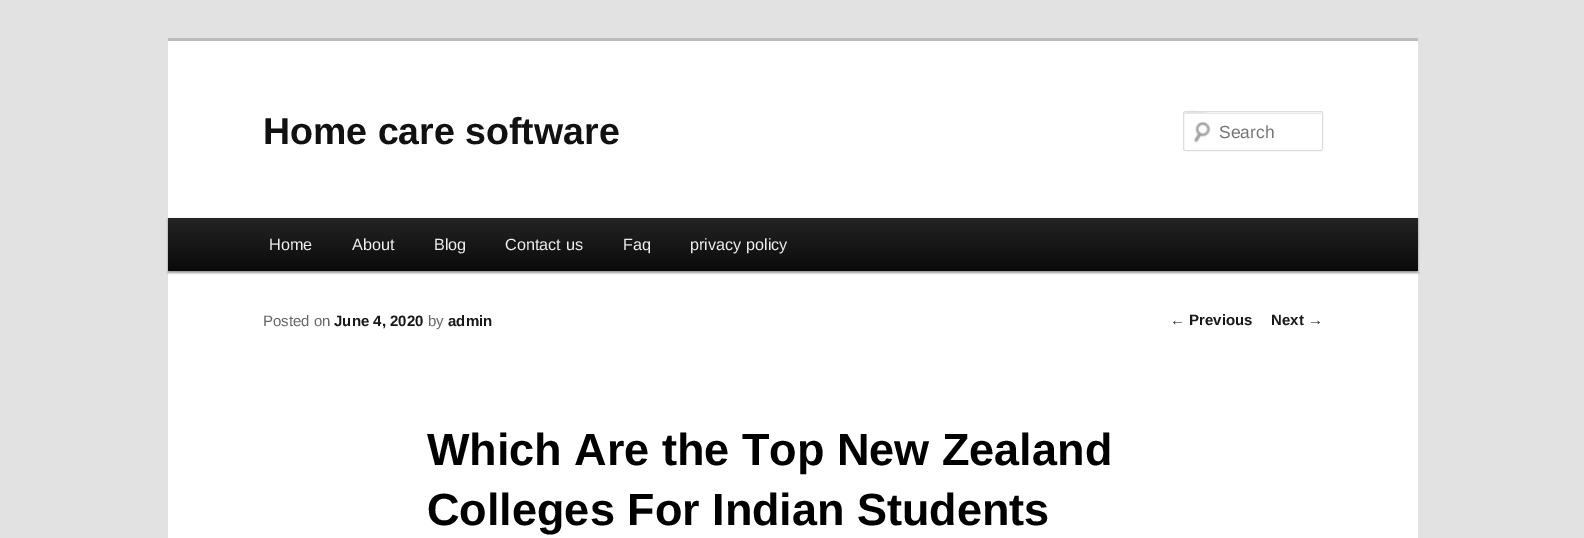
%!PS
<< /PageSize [1584 538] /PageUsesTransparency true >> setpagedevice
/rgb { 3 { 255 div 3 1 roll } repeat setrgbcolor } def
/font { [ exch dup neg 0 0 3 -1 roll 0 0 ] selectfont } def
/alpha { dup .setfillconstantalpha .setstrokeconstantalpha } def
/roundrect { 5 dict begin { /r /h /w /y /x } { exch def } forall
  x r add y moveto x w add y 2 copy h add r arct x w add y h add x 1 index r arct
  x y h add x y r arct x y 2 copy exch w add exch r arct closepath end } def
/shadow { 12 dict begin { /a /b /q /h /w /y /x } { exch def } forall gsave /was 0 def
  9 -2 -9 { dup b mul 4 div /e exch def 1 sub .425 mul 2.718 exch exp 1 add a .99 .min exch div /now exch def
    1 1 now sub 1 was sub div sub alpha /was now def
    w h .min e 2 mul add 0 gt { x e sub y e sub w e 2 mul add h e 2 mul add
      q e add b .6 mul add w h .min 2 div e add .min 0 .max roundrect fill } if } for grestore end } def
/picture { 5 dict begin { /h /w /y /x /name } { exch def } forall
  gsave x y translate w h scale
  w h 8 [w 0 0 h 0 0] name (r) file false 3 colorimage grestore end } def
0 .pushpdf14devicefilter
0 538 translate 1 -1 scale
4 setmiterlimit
226 226 226 rgb
0 0 1584 538 rectfill
255 255 255 rgb
168 41 1250 497 rectfill
187 187 187 rgb
168 38 1250 3 rectfill
(img/1.rgb) 1193 121 18 22 picture
230 230 230 rgb
1185 114 moveto 1320 114 lineto 1321 114 1321 114 1321 115 curveto 1321 113 lineto 1208 113 lineto 1207 113 1184 107 1184 115 curveto 1184 114 1184 114 1185 114 curveto closepath fill
221 221 221 rgb
1183.5 111.5 139 39 2 roundrect stroke
0 0 0 rgb
168 219 1250 54 0 1 0.4 shadow
gsave 168 218 moveto 1418 218 lineto 1418 271 lineto 168 271 lineto closepath clip newpath
<< /ShadingType 2 /ColorSpace /DeviceRGB /Coords [793 217 793 271] /Extend [true true] /Function << /FunctionType 2 /Domain [0 1] /C0 [0.145 0.145 0.145] /C1 [0.039 0.039 0.039] /N 1 >> >> shfill grestore
/LiberationSans-Bold 37.5 font
17 17 17 rgb
263 144 moveto (Home care software) show
/LiberationSans-Regular 17.5 font
117 117 117 rgb
1219 138 moveto (Search) show
/LiberationSans-Regular 16.25 font
238 238 238 rgb
[
  [(Home) 269 250]
  [(About) 352 250]
  [(Blog) 434 250]
  [(Contact us) 505 250]
  [(Faq) 623 250]
  [(privacy policy) 690 250]
] { aload pop moveto show } forall
/LiberationSans-Regular 15 font
102 102 102 rgb
263 326 moveto (Posted on) show
/LiberationSans-Bold 15 font
22 24 25 rgb
334 326 moveto (June 4, 2020) show
/LiberationSans-Regular 15 font
102 102 102 rgb
428 326 moveto (by) show
/LiberationSans-Bold 15 font
22 24 25 rgb
448 326 moveto (admin) show
/LiberationSans-Bold 45 font
0 0 0 rgb
427 465 moveto (Which Are the Top New Zealand) show
427 525 moveto (Colleges For Indian Students) show
/LiberationSans-Regular 15 font
22 24 25 rgb
1170 325 moveto (←) show
/LiberationSans-Bold 15 font
1189 325 moveto (Previous) show
1271 325 moveto (Next) show
/LiberationSans-Regular 15 font
1308 325 moveto (→) show
.poppdf14devicefilter showpage
